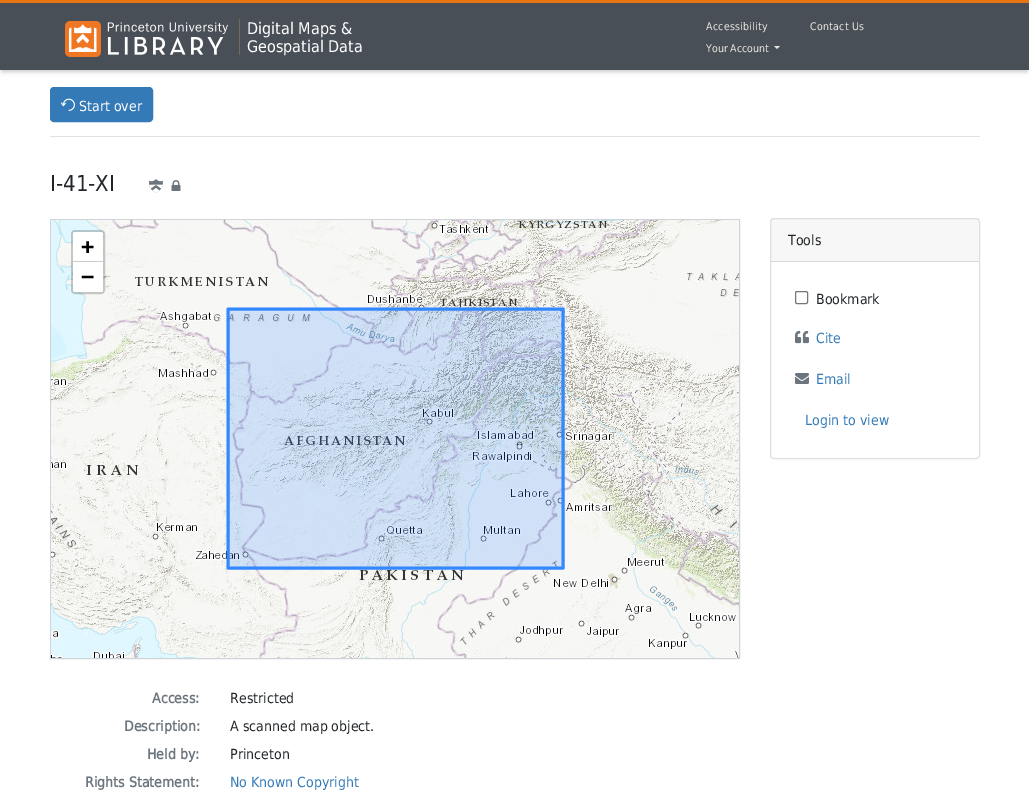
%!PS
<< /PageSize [1029 800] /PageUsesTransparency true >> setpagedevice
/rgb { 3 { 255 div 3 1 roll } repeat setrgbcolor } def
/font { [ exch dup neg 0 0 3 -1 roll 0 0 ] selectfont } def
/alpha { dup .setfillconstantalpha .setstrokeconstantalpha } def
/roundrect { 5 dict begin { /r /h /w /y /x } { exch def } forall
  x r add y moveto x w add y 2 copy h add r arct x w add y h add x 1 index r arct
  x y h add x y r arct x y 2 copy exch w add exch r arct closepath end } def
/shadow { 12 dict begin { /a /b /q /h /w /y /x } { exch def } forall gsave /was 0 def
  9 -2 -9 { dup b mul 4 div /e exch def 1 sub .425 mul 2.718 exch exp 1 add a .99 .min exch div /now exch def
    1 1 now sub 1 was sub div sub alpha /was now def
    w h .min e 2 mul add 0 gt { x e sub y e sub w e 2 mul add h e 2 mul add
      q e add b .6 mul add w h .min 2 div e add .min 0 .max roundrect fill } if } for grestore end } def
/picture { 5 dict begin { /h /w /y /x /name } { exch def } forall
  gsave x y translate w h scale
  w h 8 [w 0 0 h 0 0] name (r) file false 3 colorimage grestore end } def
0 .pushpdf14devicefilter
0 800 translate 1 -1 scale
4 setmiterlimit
255 255 255 rgb
0 0 1029 800 rectfill
0 0 0 rgb
2 6 1025 66 0 2 0.2 shadow
73 79 87 rgb
0 3 1029 67 rectfill
232 117 17 rgb
0 0 1029 3 rectfill
(img/1.rgb) 65 21 163 36 picture
116 109 84 rgb
239 19 1 36 rectfill
232 230 223 rgb
774 46 moveto 780 46 lineto 777 49 lineto closepath fill
222 226 230 rgb
50 136 930 1 rectfill
51 122 183 rgb
50.5 87.5 102 34 3.5 roundrect gsave fill grestore
stroke
(img/2.rgb) 61 98 14 13 picture
(img/3.rgb) 149 179 14 14 picture
(img/4.rgb) 171 180 10 11 picture
206 212 218 rgb
50.5 219.5 689 439 rectstroke
(img/5.rgb) 51 220 86 16 picture
(img/6.rgb) 137 220 256 16 picture
(img/7.rgb) 393 220 256 16 picture
(img/8.rgb) 649 220 90 16 picture
(img/9.rgb) 51 236 86 256 picture
(img/10.rgb) 137 236 256 256 picture
(img/11.rgb) 393 236 256 256 picture
(img/12.rgb) 649 236 90 256 picture
(img/13.rgb) 51 492 86 166 picture
(img/14.rgb) 137 492 256 166 picture
(img/15.rgb) 393 492 256 166 picture
(img/16.rgb) 649 492 90 166 picture
0.2 alpha
51 136 255 rgb
229 310 333 257 rectfill
1 alpha
3 setlinewidth
1 setlinecap
1 setlinejoin
228 568 moveto 563 568 lineto 563 309 lineto 228 309 lineto closepath stroke
0.2 alpha
0 0 0 rgb
2 setlinewidth
0 setlinecap
0 setlinejoin
72 231 32 62 3 roundrect stroke
1 alpha
255 255 255 rgb
75 232 moveto 101 232 lineto 102 232 103 233 103 234 curveto 103 262 lineto 73 262 lineto 73 234 lineto 73 233 74 232 75 232 curveto closepath fill
204 204 204 rgb
73 261 30 1 rectfill
255 255 255 rgb
73 262 moveto 103 262 lineto 103 290 lineto 103 291 102 292 101 292 curveto 75 292 lineto 74 292 73 291 73 290 curveto closepath fill
223 223 223 rgb
1 setlinewidth
770.5 218.5 209 240 3.5 roundrect stroke
0.03 alpha
0 0 0 rgb
771 219 208 42 rectfill
1 alpha
216 216 216 rgb
771 261 208 1 rectfill
118 118 118 rgb
795.5 291.5 12 12 1.5 roundrect stroke
(img/17.rgb) 795 330 14 14 picture
(img/18.rgb) 795 373 14 11 picture
/DejaVuSans-Regular 16 font
255 255 255 rgb
247 34 moveto (Digital Maps &) show
247 52 moveto (Geospatial Data) show
/DejaVuSans-Regular 10.5 font
232 230 223 rgb
706 30 moveto 0.25 0 (Accessibility) ashow
810 30 moveto 0.25 0 (Contact Us) ashow
706 52 moveto (Your Account) show
/DejaVuSans-Regular 14 font
255 255 255 rgb
79 111 moveto (Start over) show
/DejaVuSans-Regular 22 font
33 37 41 rgb
50 191 moveto (I-41-XI) show
/DejaVuSansMono-Bold 22 font
0 0 0 rgb
81 254 moveto (+) show
81 284 moveto (−) show
/DejaVuSans-Bold 14 font
108 117 125 rgb
152 703 moveto (Access:) show
/DejaVuSans-Regular 14 font
33 37 41 rgb
230 703 moveto (Restricted) show
/DejaVuSans-Bold 14 font
108 117 125 rgb
124 731 moveto (Description:) show
/DejaVuSans-Regular 14 font
33 37 41 rgb
230 731 moveto (A scanned map object.) show
/DejaVuSans-Bold 14 font
108 117 125 rgb
147 759 moveto (Held by:) show
/DejaVuSans-Regular 14 font
33 37 41 rgb
230 759 moveto (Princeton) show
/DejaVuSans-Bold 14 font
108 117 125 rgb
85 787 moveto (Rights Statement:) show
/DejaVuSans-Regular 14 font
51 122 183 rgb
230 787 moveto (No Known Copyright) show
33 37 41 rgb
788 245 moveto (Tools) show
816 304 moveto (Bookmark) show
51 122 183 rgb
[
  [(Cite) 816 343]
  [(Email) 816 384]
  [(Login to view) 805 425]
] { aload pop moveto show } forall
.poppdf14devicefilter showpage
